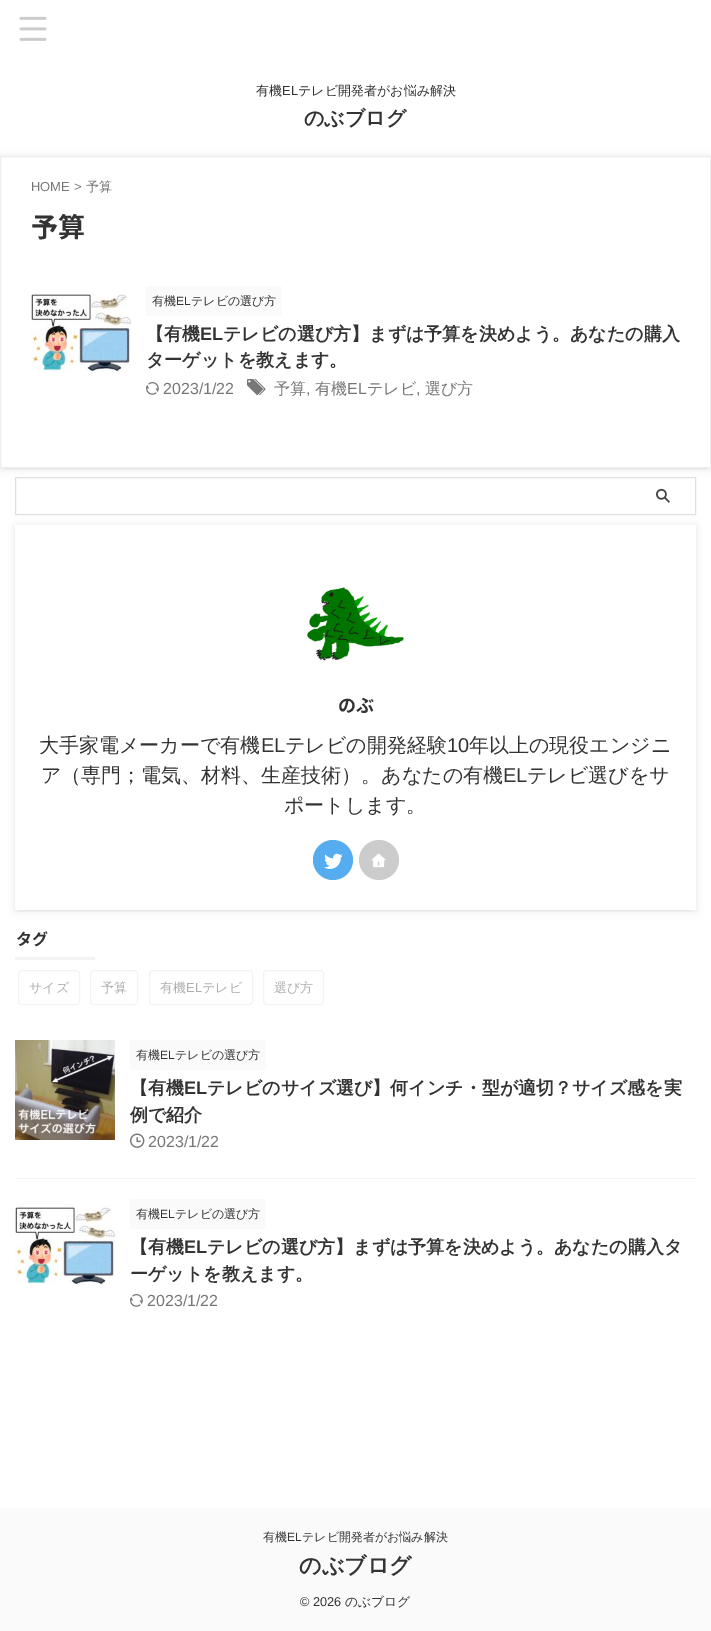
%!PS
<< /PageSize [711 1631] /PageUsesTransparency true >> setpagedevice
/rgb { 3 { 255 div 3 1 roll } repeat setrgbcolor } def
/font { [ exch dup neg 0 0 3 -1 roll 0 0 ] selectfont } def
/alpha { dup .setfillconstantalpha .setstrokeconstantalpha } def
/circle { newpath 0 360 arc closepath } def
/roundrect { 5 dict begin { /r /h /w /y /x } { exch def } forall
  x r add y moveto x w add y 2 copy h add r arct x w add y h add x 1 index r arct
  x y h add x y r arct x y 2 copy exch w add exch r arct closepath end } def
/shadow { 12 dict begin { /a /b /q /h /w /y /x } { exch def } forall gsave /was 0 def
  9 -2 -9 { dup b mul 4 div /e exch def 1 sub .425 mul 2.718 exch exp 1 add a .99 .min exch div /now exch def
    1 1 now sub 1 was sub div sub alpha /was now def
    w h .min e 2 mul add 0 gt { x e sub y e sub w e 2 mul add h e 2 mul add
      q e add b .6 mul add w h .min 2 div e add .min 0 .max roundrect fill } if } for grestore end } def
/picture { 5 dict begin { /h /w /y /x /name } { exch def } forall
  gsave x y translate w h scale
  w h 8 [w 0 0 h 0 0] name (r) file false 3 colorimage grestore end } def
0 .pushpdf14devicefilter
0 1631 translate 1 -1 scale
4 setmiterlimit
255 255 255 rgb
0 0 711 1631 rectfill
(img/1.rgb) 19 16 28 25 picture
gsave
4 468 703 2 rectclip
0 0 0 rgb
4 164 703 304 0 2 0.1 shadow
grestore
gsave
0 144 moveto 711 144 lineto 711 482 lineto 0 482 lineto closepath 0 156 moveto 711 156 lineto 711 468 lineto 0 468 lineto closepath eoclip newpath
0 0 0 rgb
0 157 711 312 0 4 0.1 shadow
grestore
238 238 238 rgb
0.5 156.5 710 311 rectstroke
(img/2.rgb) 31 292 100 80 picture
250 250 250 rgb
146 286 136 30 2 roundrect fill
(img/3.rgb) 146 382 13 13 picture
(img/4.rgb) 247 379 19 16 picture
gsave
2 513 moveto 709 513 lineto 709 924 lineto 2 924 lineto closepath 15 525 moveto 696 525 lineto 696 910 lineto 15 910 lineto closepath eoclip newpath
0 0 0 rgb
15 526 681 385 0 4 0.1 shadow
grestore
224 224 224 rgb
15.5 477.5 680 37 rectstroke
(img/5.rgb) 656 488 14 15 picture
gsave
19 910 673 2 rectclip
0 0 0 rgb
19 533 673 377 0 2 0.1 shadow
grestore
(img/6.rgb) 307 587 97 74 picture
85 172 238 rgb
333 860 20 circle fill
(img/7.rgb) 324 853 19 16 picture
204 204 204 rgb
379 860 20 circle fill
(img/8.rgb) 371 853 15 15 picture
243 243 243 rgb
15 957 80 3 rectfill
18.5 970.5 61 34 3.5 roundrect stroke
90.5 970.5 47 34 3.5 roundrect stroke
149.5 970.5 103 34 3.5 roundrect stroke
263.5 970.5 60 34 3.5 roundrect stroke
15 1178 681 1 rectfill
(img/9.rgb) 15 1040 100 100 picture
250 250 250 rgb
130 1040 136 30 2 roundrect fill
(img/10.rgb) 130 1133 15 15 picture
(img/2.rgb) 15 1205 100 80 picture
130 1199 136 30 2 roundrect fill
(img/3.rgb) 130 1294 13 13 picture
0 1508 711 123 rectfill
/WenQuanYiZenHei-Medium 13 font
51 51 51 rgb
256 95 moveto (有機) show
/LiberationSans-Regular 13 font
282 95 moveto (EL) show
/WenQuanYiZenHei-Medium 13 font
298 95 moveto (テレビ開発者がお悩み解決) show
/WenQuanYiZenHei-Bold 20 font
304 125 moveto (のぶブログ) show
/LiberationSans-Regular 13 font
119 119 119 rgb
31 191 moveto (HOME >) show
/WenQuanYiZenHei-Medium 13 font
86 191 moveto (予算) show
/NotoSansJP-Bold 27 font
51 51 51 rgb
31 237 moveto (予算) show
/WenQuanYiZenHei-Medium 12 font
152 305 moveto (有機) show
/LiberationSans-Regular 12 font
176 305 moveto (EL) show
/WenQuanYiZenHei-Medium 12 font
191 305 moveto (テレビの選び方) show
/WenQuanYiZenHei-Bold 18 font
146 340 moveto (【有機) show
/LiberationSans-Bold 18 font
200 340 moveto (EL) show
/WenQuanYiZenHei-Bold 18 font
223 340 moveto (テレビの選び方】まずは予算を決めよう。あなたの購入) show
146 366 moveto (ターゲットを教えます。) show
/LiberationSans-Regular 16 font
119 119 119 rgb
163 394 moveto (2023/1/22) show
/WenQuanYiZenHei-Medium 16 font
274 394 moveto (予算) show
315 394 moveto (有機) show
/LiberationSans-Regular 16 font
347 394 moveto (EL) show
/WenQuanYiZenHei-Medium 16 font
367 394 moveto (テレビ) show
425 394 moveto (選び方) show
/LiberationSans-Regular 16 font
306 394 moveto (,) show
416 394 moveto (,) show
/NotoSansJP-Bold 18 font
51 51 51 rgb
338 712 moveto (のぶ) show
/WenQuanYiZenHei-Medium 20 font
39 752 moveto (大手家電メーカーで有機) show
/LiberationSans-Regular 20 font
261 752 moveto (EL) show
/WenQuanYiZenHei-Medium 20 font
285 752 moveto (テレビの開発経験) show
/LiberationSans-Regular 20 font
447 752 moveto (10) show
/WenQuanYiZenHei-Medium 20 font
469 752 moveto (年以上の現役エンジニ) show
41 782 moveto (ア（専門；電気、材料、生産技術）。あなたの有機) show
/LiberationSans-Regular 20 font
503 782 moveto (EL) show
/WenQuanYiZenHei-Medium 20 font
527 782 moveto (テレビ選びをサ) show
284 812 moveto (ポートします。) show
/NotoSansJP-Bold 16 font
16 945 moveto (タグ) show
/WenQuanYiZenHei-Medium 13 font
175 175 175 rgb
[
  [(サイズ) 29 992]
  [(予算) 101 992]
  [(有機) 160 992]
] { aload pop moveto show } forall
/LiberationSans-Regular 13 font
186 992 moveto (EL) show
/WenQuanYiZenHei-Medium 13 font
202 992 moveto (テレビ) show
274 992 moveto (選び方) show
/WenQuanYiZenHei-Medium 12 font
51 51 51 rgb
136 1059 moveto (有機) show
/LiberationSans-Regular 12 font
160 1059 moveto (EL) show
/WenQuanYiZenHei-Medium 12 font
175 1059 moveto (テレビの選び方) show
/WenQuanYiZenHei-Bold 18 font
130 1094 moveto (【有機) show
/LiberationSans-Bold 18 font
184 1094 moveto (EL) show
/WenQuanYiZenHei-Bold 18 font
207 1094 moveto (テレビのサイズ選び】何インチ・型が適切？サイズ感を実) show
130 1121 moveto (例で紹介) show
/LiberationSans-Regular 16 font
119 119 119 rgb
148 1147 moveto (2023/1/22) show
/WenQuanYiZenHei-Medium 12 font
51 51 51 rgb
136 1218 moveto (有機) show
/LiberationSans-Regular 12 font
160 1218 moveto (EL) show
/WenQuanYiZenHei-Medium 12 font
175 1218 moveto (テレビの選び方) show
/WenQuanYiZenHei-Bold 18 font
130 1253 moveto (【有機) show
/LiberationSans-Bold 18 font
184 1253 moveto (EL) show
/WenQuanYiZenHei-Bold 18 font
207 1253 moveto (テレビの選び方】まずは予算を決めよう。あなたの購入タ) show
130 1280 moveto (ーゲットを教えます。) show
/LiberationSans-Regular 16 font
119 119 119 rgb
147 1306 moveto (2023/1/22) show
/WenQuanYiZenHei-Medium 12 font
51 51 51 rgb
263 1541 moveto (有機) show
/LiberationSans-Regular 12 font
287 1541 moveto (EL) show
/WenQuanYiZenHei-Medium 12 font
302 1541 moveto (テレビ開発者がお悩み解決) show
/WenQuanYiZenHei-Bold 22 font
299 1573 moveto (のぶブログ) show
/LiberationSans-Regular 12.75 font
300 1606 moveto (© 2026) show
/WenQuanYiZenHei-Medium 12.75 font
345 1606 moveto (のぶブログ) show
.poppdf14devicefilter showpage
